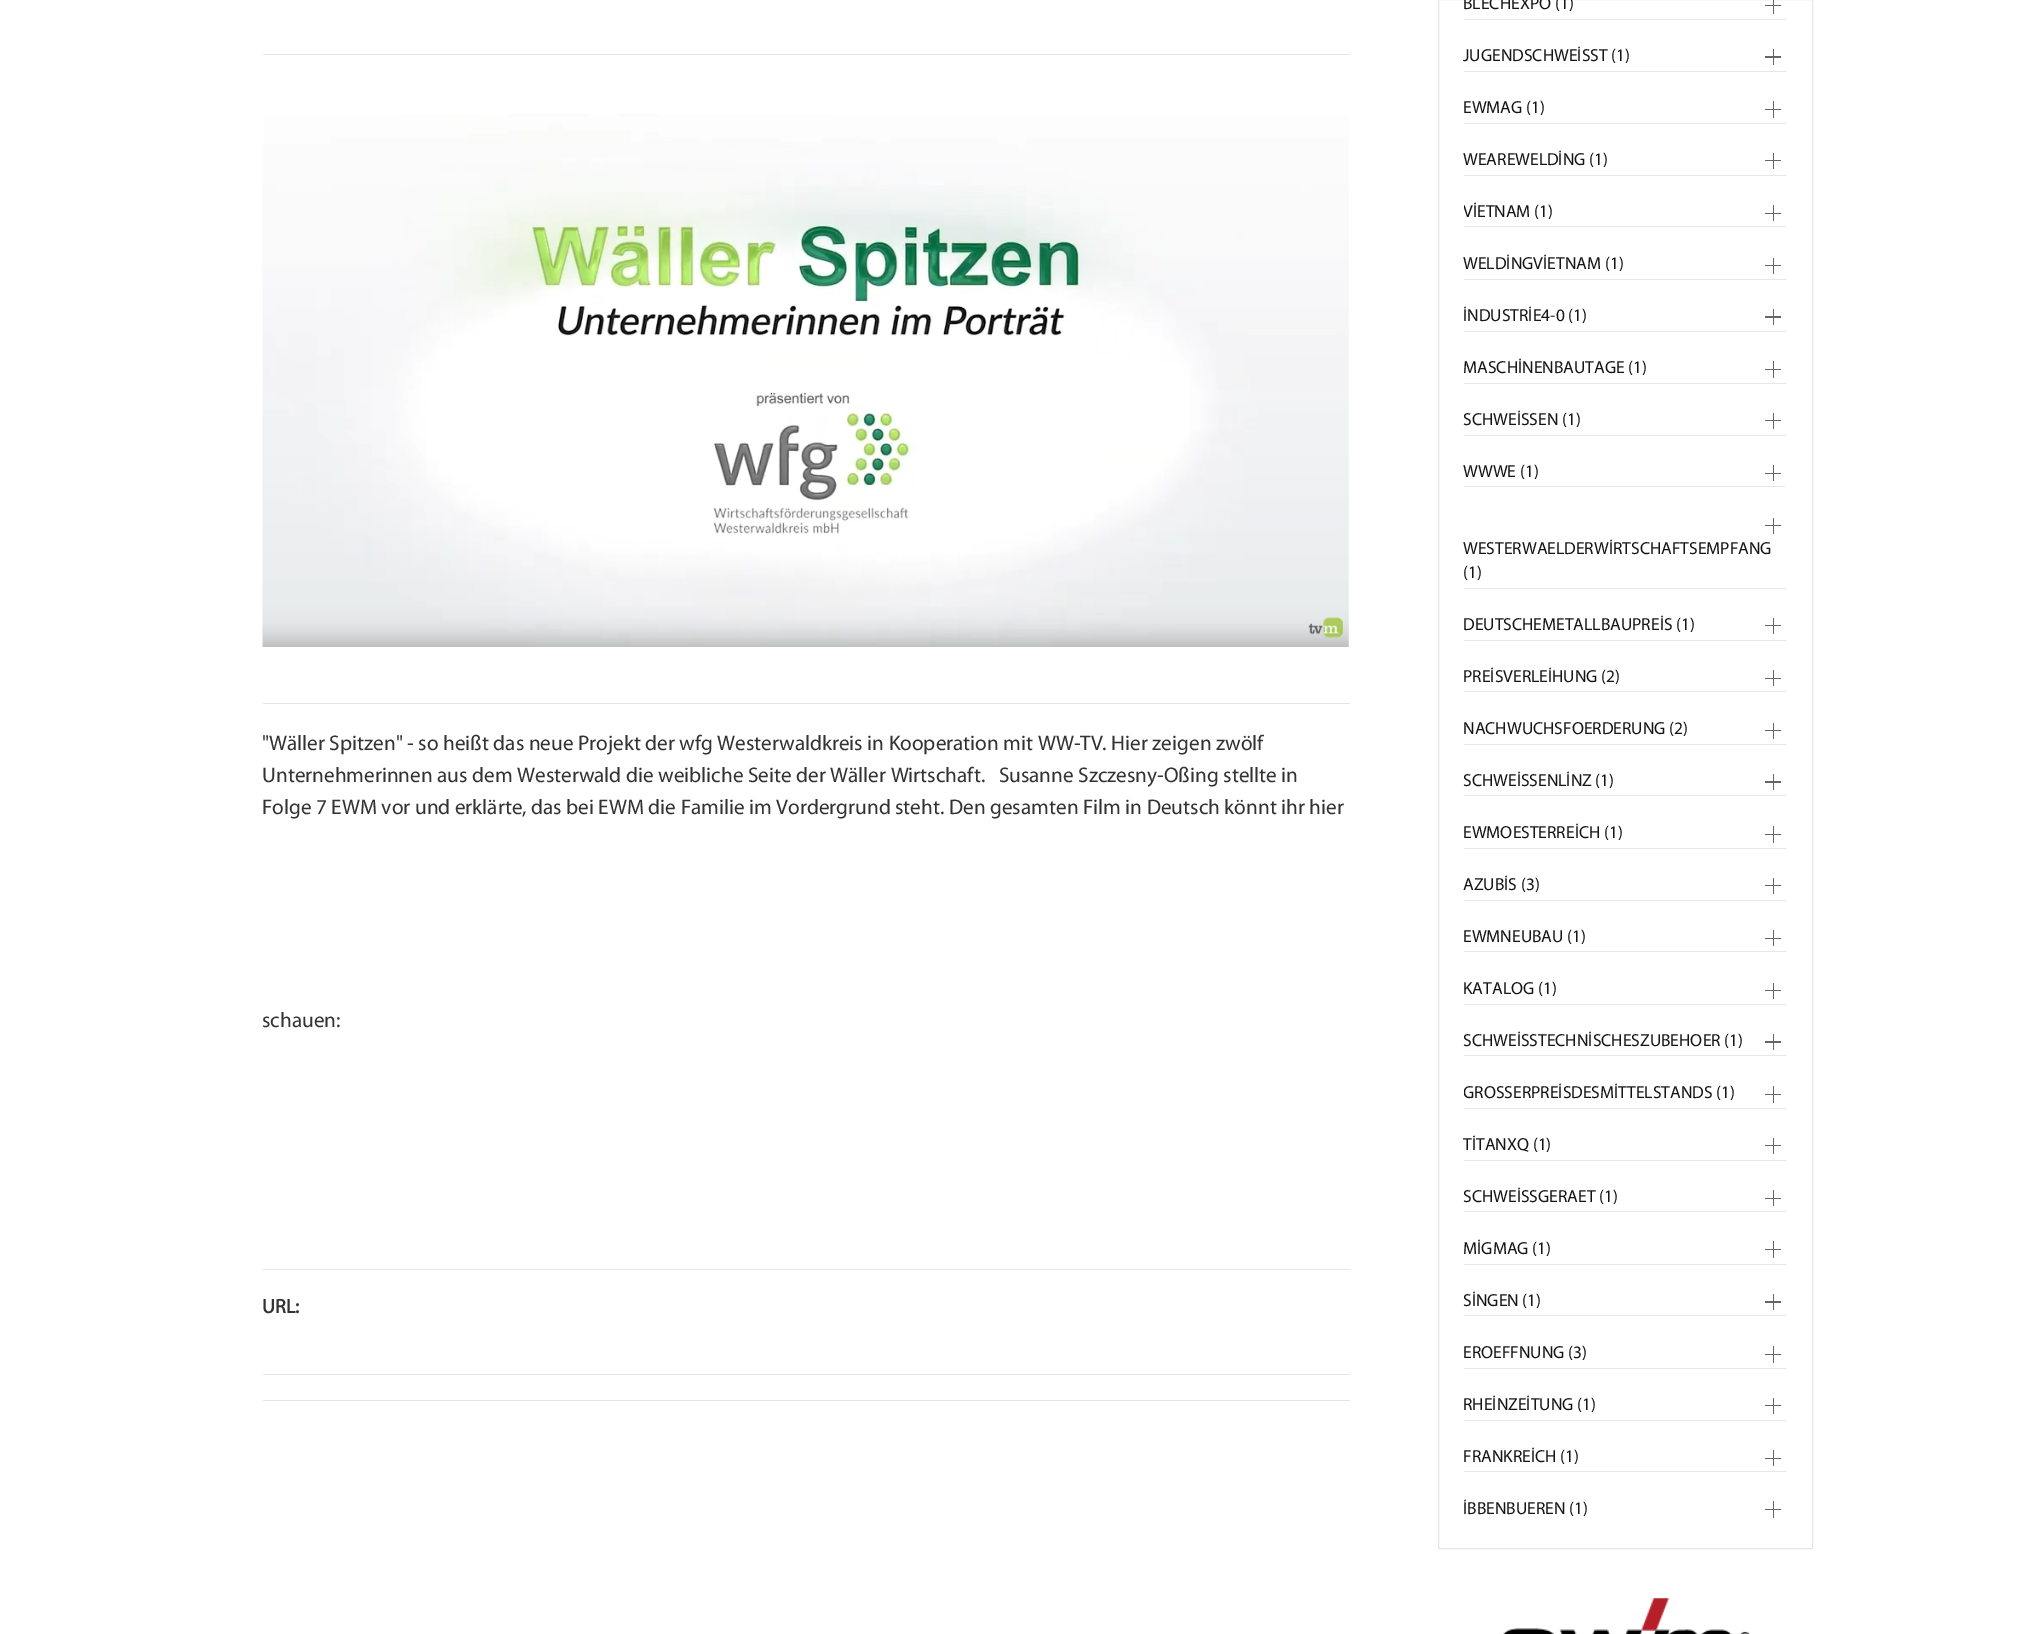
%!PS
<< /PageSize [2023 1634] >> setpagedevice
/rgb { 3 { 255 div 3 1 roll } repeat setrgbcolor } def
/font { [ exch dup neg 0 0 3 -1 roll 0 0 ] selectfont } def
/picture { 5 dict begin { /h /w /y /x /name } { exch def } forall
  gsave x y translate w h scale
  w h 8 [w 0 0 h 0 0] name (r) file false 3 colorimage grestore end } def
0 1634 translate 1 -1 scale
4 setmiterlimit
255 255 255 rgb
0 0 2023 1634 rectfill
229 229 229 rgb
263 54 1087 1 rectfill
(img/1.rgb) 262 114 1087 533 picture
[
  [263 703 1087 1 229 229 229]
  [263 1269 1087 1 229 229 229]
  [263 1374 1087 1 229 229 229]
  [263 1400 1087 1 229 229 229]
] { aload pop rgb rectfill } forall
230 230 230 rgb
1438.5 -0.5 374 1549 rectstroke
[
  [1464 19 322 1 230 230 230]
  [1765 5 16 1 102 102 102]
  [1773 0 1 14 102 102 102]
  [1464 71 322 1 230 230 230]
  [1765 56 16 2 102 102 102]
  [1773 49 1 16 102 102 102]
  [1464 123 322 1 230 230 230]
  [1765 109 16 1 102 102 102]
  [1773 101 1 17 102 102 102]
  [1464 175 322 1 230 230 230]
  [1765 160 16 1 102 102 102]
  [1773 153 1 16 102 102 102]
  [1464 226 322 1 230 230 230]
  [1765 213 16 1 102 102 102]
  [1773 205 1 16 102 102 102]
  [1464 279 322 1 230 230 230]
  [1765 265 16 1 102 102 102]
  [1773 258 1 16 102 102 102]
  [1464 331 322 1 230 230 230]
  [1765 316 16 2 102 102 102]
  [1773 309 1 16 102 102 102]
  [1464 383 322 1 230 230 230]
  [1765 369 16 1 102 102 102]
  [1773 361 1 17 102 102 102]
  [1464 435 322 1 230 230 230]
  [1765 420 16 1 102 102 102]
  [1773 413 1 16 102 102 102]
  [1464 486 322 1 230 230 230]
  [1765 473 16 1 102 102 102]
  [1773 465 1 16 102 102 102]
  [1464 588 322 1 230 230 230]
  [1765 525 16 1 102 102 102]
  [1773 518 1 16 102 102 102]
  [1464 640 322 1 230 230 230]
  [1765 625 16 1 102 102 102]
  [1773 618 1 16 102 102 102]
  [1464 691 322 1 230 230 230]
  [1765 678 16 1 102 102 102]
  [1773 670 1 16 102 102 102]
  [1464 744 322 1 230 230 230]
  [1765 730 16 1 102 102 102]
  [1773 723 1 16 102 102 102]
  [1464 795 322 1 230 230 230]
  [1765 781 16 2 102 102 102]
  [1773 774 1 16 102 102 102]
  [1464 848 322 1 230 230 230]
  [1765 834 16 1 102 102 102]
  [1773 826 1 17 102 102 102]
  [1464 900 322 1 230 230 230]
  [1765 885 16 1 102 102 102]
  [1773 878 1 16 102 102 102]
  [1464 951 322 1 230 230 230]
  [1765 938 16 1 102 102 102]
  [1773 930 1 16 102 102 102]
  [1464 1004 322 1 230 230 230]
  [1765 990 16 1 102 102 102]
  [1773 983 1 16 102 102 102]
  [1464 1055 322 1 230 230 230]
  [1765 1041 16 2 102 102 102]
  [1773 1034 1 16 102 102 102]
  [1464 1108 322 1 230 230 230]
  [1765 1094 16 1 102 102 102]
  [1773 1086 1 17 102 102 102]
  [1464 1160 322 1 230 230 230]
  [1765 1145 16 1 102 102 102]
  [1773 1138 1 16 102 102 102]
  [1464 1211 322 1 230 230 230]
  [1765 1198 16 1 102 102 102]
  [1773 1190 1 16 102 102 102]
  [1464 1264 322 1 230 230 230]
  [1765 1249 16 1 102 102 102]
  [1773 1241 1 17 102 102 102]
  [1464 1315 322 1 230 230 230]
  [1765 1301 16 2 102 102 102]
  [1773 1294 1 16 102 102 102]
  [1464 1368 322 1 230 230 230]
  [1765 1354 16 1 102 102 102]
  [1773 1346 1 17 102 102 102]
  [1464 1420 322 1 230 230 230]
  [1765 1405 16 1 102 102 102]
  [1773 1398 1 16 102 102 102]
  [1464 1471 322 1 230 230 230]
  [1765 1458 16 1 102 102 102]
  [1773 1450 1 16 102 102 102]
  [1765 1509 16 1 102 102 102]
  [1773 1501 1 17 102 102 102]
] { aload pop rgb rectfill } forall
(img/2.rgb) 1503 1598 247 36 picture
/Myriad-Regular 21.25 font
51 51 51 rgb
[
  [("Wäller Spitzen" - so heißt das neue Projekt der wfg Westerwaldkreis in Kooperation mit WW-TV. Hier zeigen zwölf) 262 750]
  [(Unternehmerinnen aus dem Westerwald die weibliche Seite der Wäller Wirtschaft.   Susanne Szczesny-Oßing stellte in) 262 782]
  [(Folge 7 EWM vor und erklärte, das bei EWM die Familie im Vordergrund steht. Den gesamten Film in Deutsch könnt ihr hier) 262 814]
  [(schauen:) 262 1027]
] { aload pop moveto show } forall
/Myriad-Bold 20 font
262 1313 moveto (URL:) show
/Myriad-Regular 17.5 font
21 21 21 rgb
[
  [(BLECHEXPO \(1\)) 1463 9]
  [(JUGENDSCHWEİSST \(1\)) 1463 61]
  [(EWMAG \(1\)) 1463 113]
  [(WEAREWELDİNG \(1\)) 1463 165]
] { aload pop moveto show } forall
gsave
1464 201 322 24 rectclip
1463 217 moveto (VİETNAM \(1\)) show
grestore
[
  [(WELDİNGVİETNAM \(1\)) 1463 269]
  [(İNDUSTRİE4-0 \(1\)) 1463 321]
  [(MASCHİNENBAUTAGE \(1\)) 1463 373]
  [(SCHWEİSSEN \(1\)) 1463 425]
  [(WWWE \(1\)) 1463 477]
  [(WESTERWAELDERWİRTSCHAFTSEMPFANG) 1463 554]
  [(\(1\)) 1463 578]
  [(DEUTSCHEMETALLBAUPREİS \(1\)) 1463 630]
  [(PREİSVERLEİHUNG \(2\)) 1463 682]
  [(NACHWUCHSFOERDERUNG \(2\)) 1463 734]
  [(SCHWEİSSENLİNZ \(1\)) 1463 786]
  [(EWMOESTERREİCH \(1\)) 1463 838]
  [(AZUBİS \(3\)) 1463 890]
  [(EWMNEUBAU \(1\)) 1463 942]
  [(KATALOG \(1\)) 1463 994]
  [(SCHWEİSSTECHNİSCHESZUBEHOER \(1\)) 1463 1046]
] { aload pop moveto show } forall
gsave
1464 1081 322 25 rectclip
1463 1098 moveto (GROSSERPREİSDESMİTTELSTANDS \(1\)) show
grestore
[
  [(TİTANXQ \(1\)) 1463 1150]
  [(SCHWEİSSGERAET \(1\)) 1463 1202]
  [(MİGMAG \(1\)) 1463 1254]
  [(SİNGEN \(1\)) 1463 1306]
  [(EROEFFNUNG \(3\)) 1463 1358]
  [(RHEİNZEİTUNG \(1\)) 1463 1410]
  [(FRANKREİCH \(1\)) 1463 1462]
  [(İBBENBUEREN \(1\)) 1463 1514]
] { aload pop moveto show } forall
showpage
